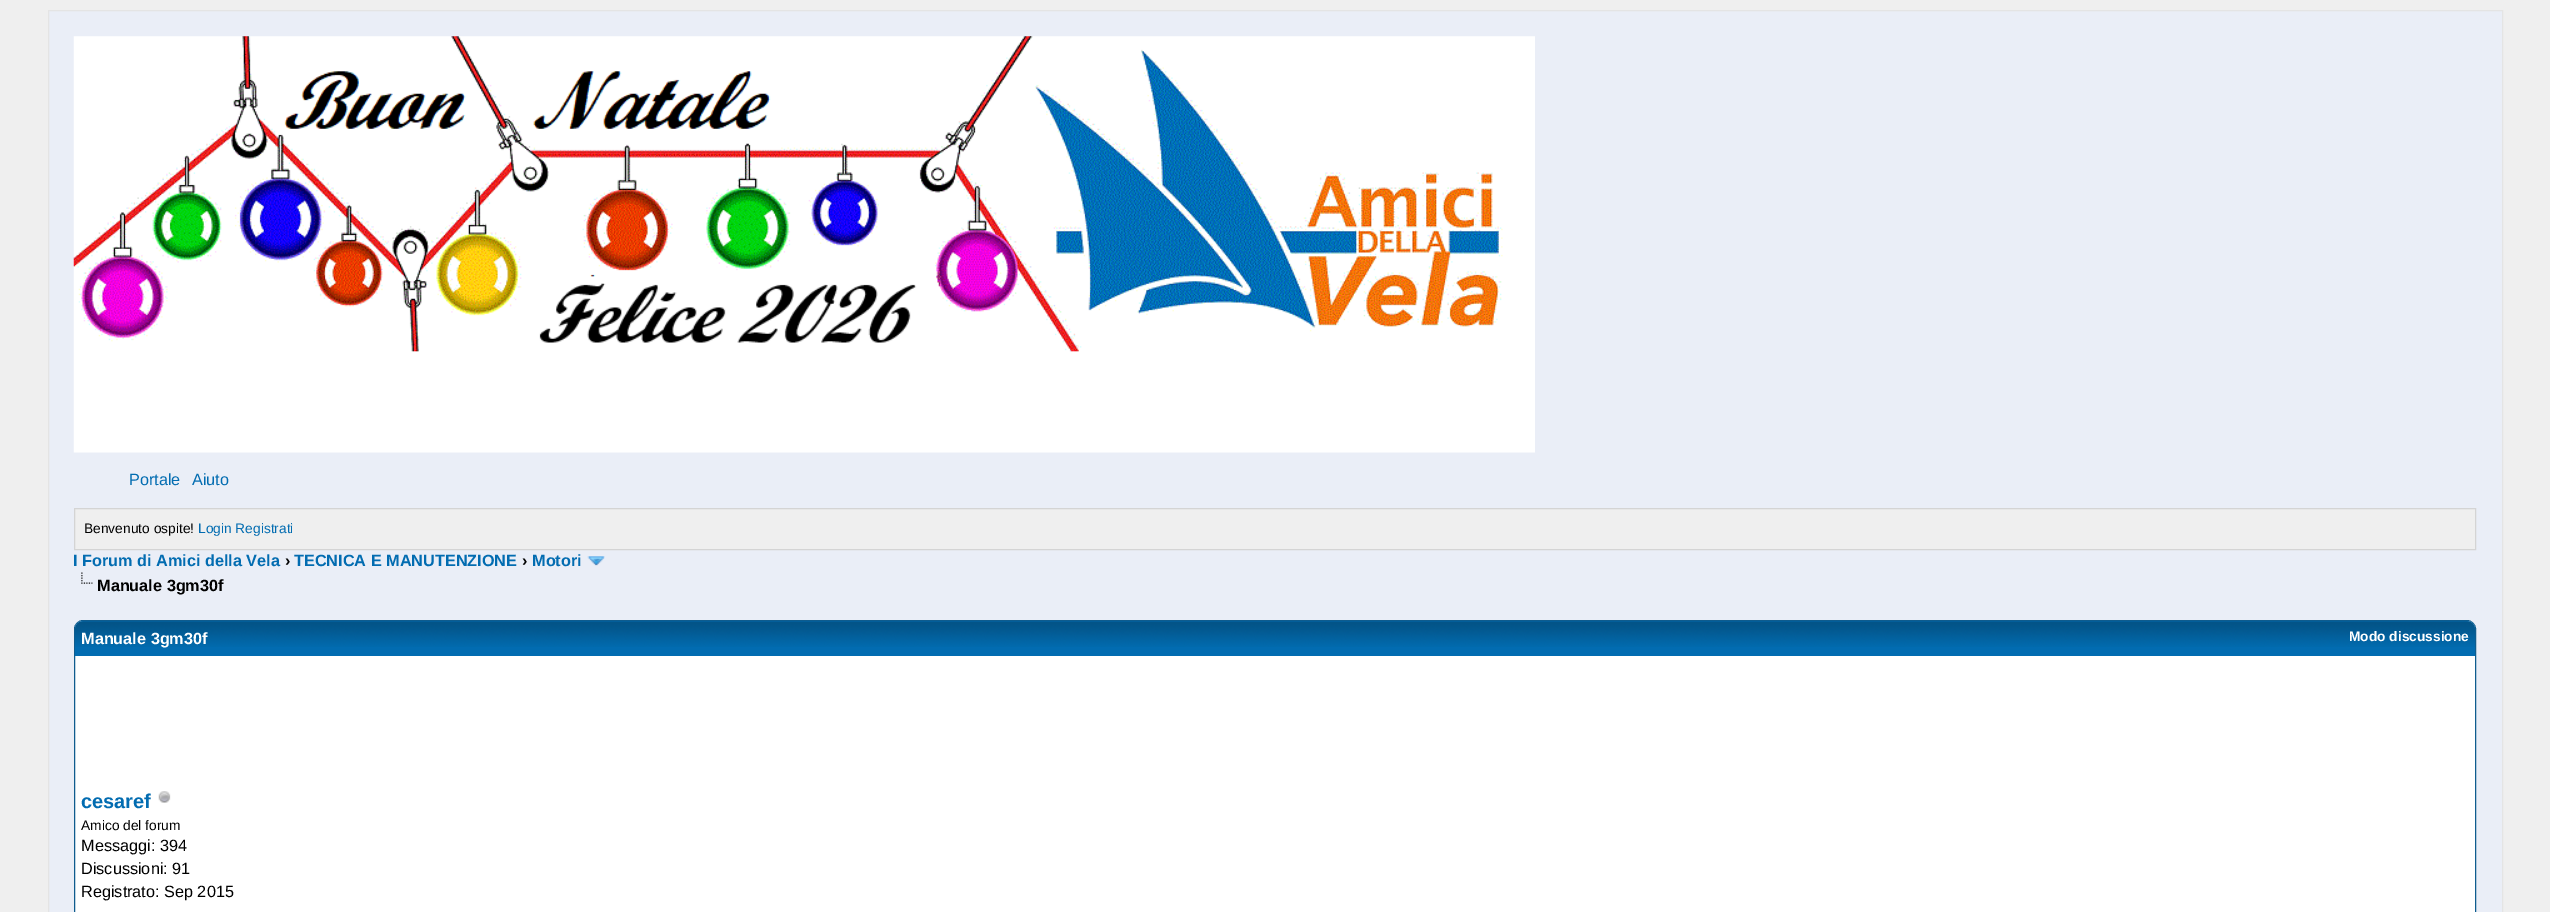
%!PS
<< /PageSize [2550 912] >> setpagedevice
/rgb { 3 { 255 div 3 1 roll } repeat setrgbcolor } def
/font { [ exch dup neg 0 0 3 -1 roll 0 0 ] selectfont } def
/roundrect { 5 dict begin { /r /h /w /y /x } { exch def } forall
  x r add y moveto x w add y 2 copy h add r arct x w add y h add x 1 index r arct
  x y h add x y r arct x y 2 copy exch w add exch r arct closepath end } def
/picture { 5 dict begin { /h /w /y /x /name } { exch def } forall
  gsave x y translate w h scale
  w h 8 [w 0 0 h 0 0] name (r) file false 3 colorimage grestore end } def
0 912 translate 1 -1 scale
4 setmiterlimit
239 239 239 rgb
0 0 2550 912 rectfill
234 238 247 rgb
48.5 10.5 moveto 2502.5 10.5 lineto 2502.5 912.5 lineto 48.5 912.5 lineto closepath gsave fill grestore
228 228 228 rgb
stroke
(img/1.rgb) 73 36 1462 417 picture
239 239 239 rgb
74.5 508.5 moveto 2475.5 508.5 lineto 2475.5 549.5 lineto 74.5 549.5 lineto closepath gsave fill grestore
212 212 212 rgb
stroke
(img/2.rgb) 587 556 18 10 picture
(img/3.rgb) 81 572 12 12 picture
255 255 255 rgb
74.5 620.5 2401 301 8.5 roundrect gsave fill grestore
15 92 142 rgb
stroke
2 108 177 rgb
83 621 moveto 2467 621 lineto 2471.5 621 2475 624.5 2475 629 curveto 2475 656 lineto 75 656 lineto 75 629 lineto 75 624.5 78.5 621 83 621 curveto closepath fill
(img/4.rgb) 75 621 2400 26 picture
(img/5.rgb) 158 791 13 12 picture
/LiberationSans-Regular 16.25 font
129 485 moveto (Portale) show
192 485 moveto (Aiuto) show
/LiberationSans-Regular 13.75 font
0 0 0 rgb
84 533 moveto (Benvenuto ospite!) show
2 108 177 rgb
198 533 moveto (Login Registrati) show
/LiberationSans-Bold 16.25 font
73 566 moveto (I Forum di Amici della Vela) show
0 0 0 rgb
285 566 moveto (›) show
2 108 177 rgb
294 566 moveto (TECNICA E MANUTENZIONE) show
0 0 0 rgb
522 566 moveto (›) show
2 108 177 rgb
532 566 moveto (Motori) show
0 0 0 rgb
97 591 moveto (Manuale 3gm30f) show
255 255 255 rgb
81 644 moveto (Manuale 3gm30f) show
/LiberationSans-Bold 13.75 font
2349 641 moveto (Modo discussione) show
/LiberationSans-Bold 20 font
2 108 177 rgb
81 808 moveto (cesaref) show
/LiberationSans-Regular 13.75 font
0 0 0 rgb
81 830 moveto (Amico del forum) show
/LiberationSans-Regular 16.25 font
[
  [(Messaggi: 394) 81 851]
  [(Discussioni: 91) 81 874]
  [(Registrato: Sep 2015) 81 897]
] { aload pop moveto show } forall
showpage
